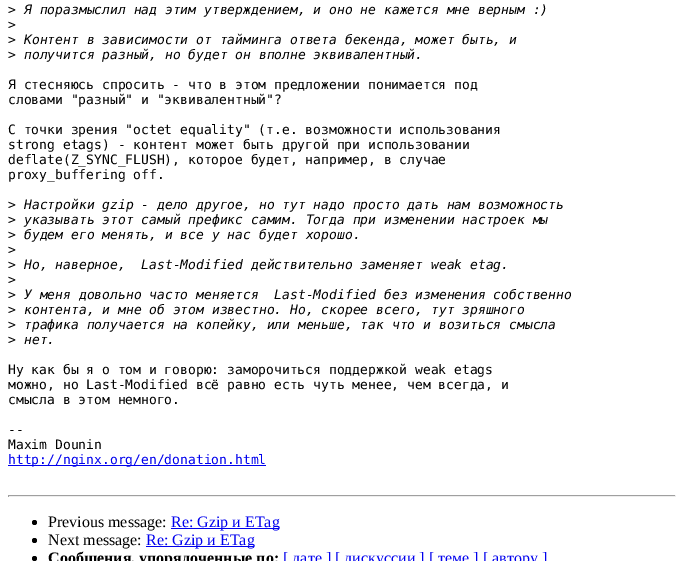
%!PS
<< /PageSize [684 561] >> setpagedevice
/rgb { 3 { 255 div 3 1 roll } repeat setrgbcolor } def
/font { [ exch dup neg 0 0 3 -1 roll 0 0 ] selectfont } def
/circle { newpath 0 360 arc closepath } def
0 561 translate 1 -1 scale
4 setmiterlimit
255 255 255 rgb
0 0 684 561 rectfill
[
  [8 465 258 1 0 0 238]
  [8 495 668 1 159 159 159]
  [675 495 1 2 238 238 238]
  [8 496 668 1 238 238 238]
  [8 495 1 2 159 159 159]
] { aload pop rgb rectfill } forall
0 0 0 rgb
34.5 522.5 2.5 circle fill
0 0 238 rgb
171 528 108 1 rectfill
0 0 0 rgb
34.5 540.5 2.5 circle fill
0 0 238 rgb
146 546 108 1 rectfill
0 0 0 rgb
34.5 558.5 2.5 circle fill
/DejaVuSansMono-Regular 13 font
8 14 moveto (>) show
/DejaVuSansMono-Italic 13 font
24 14 moveto (Я поразмыслил над этим утверждением, и оно не кажется мне верным :\)) show
/DejaVuSansMono-Regular 13 font
8 29 moveto (>) show
8 44 moveto (>) show
/DejaVuSansMono-Italic 13 font
24 44 moveto (Контент в зависимости от тайминга ответа бекенда, может быть, и) show
/DejaVuSansMono-Regular 13 font
8 59 moveto (>) show
/DejaVuSansMono-Italic 13 font
24 59 moveto (получится разный, но будет он вполне эквивалентный.) show
/DejaVuSansMono-Regular 13 font
[
  [(Я стесняюсь спросить - что в этом предложении понимается под) 8 89]
  [(словами "разный" и "эквивалентный"?) 8 104]
  [(С точки зрения "octet equality" \(т.е. возможности использования) 8 134]
  [(strong etags\) - контент может быть другой при использовании) 8 149]
  [(deflate\(Z_SYNC_FLUSH\), которое будет, например, в случае) 8 164]
  [(proxy_buffering off.) 8 179]
  [(>) 8 209]
] { aload pop moveto show } forall
/DejaVuSansMono-Italic 13 font
24 209 moveto (Настройки gzip - дело другое, но тут надо просто дать нам возможность) show
/DejaVuSansMono-Regular 13 font
8 224 moveto (>) show
/DejaVuSansMono-Italic 13 font
24 224 moveto (указывать этот самый префикс самим. Тогда при изменении настроек мы) show
/DejaVuSansMono-Regular 13 font
8 239 moveto (>) show
/DejaVuSansMono-Italic 13 font
24 239 moveto (будем его менять, и все у нас будет хорошо.) show
/DejaVuSansMono-Regular 13 font
8 254 moveto (>) show
8 269 moveto (>) show
/DejaVuSansMono-Italic 13 font
24 269 moveto (Но, наверное,  Last-Modified действительно заменяет weak etag.) show
/DejaVuSansMono-Regular 13 font
8 284 moveto (>) show
8 299 moveto (>) show
/DejaVuSansMono-Italic 13 font
24 299 moveto (У меня довольно часто меняется  Last-Modified без изменения собственно) show
/DejaVuSansMono-Regular 13 font
8 314 moveto (>) show
/DejaVuSansMono-Italic 13 font
24 314 moveto (контента, и мне об этом известно. Но, скорее всего, тут зряшного) show
/DejaVuSansMono-Regular 13 font
8 329 moveto (>) show
/DejaVuSansMono-Italic 13 font
24 329 moveto (трафика получается на копейку, или меньше, так что и возиться смысла) show
/DejaVuSansMono-Regular 13 font
8 344 moveto (>) show
/DejaVuSansMono-Italic 13 font
24 344 moveto (нет.) show
/DejaVuSansMono-Regular 13 font
[
  [(Ну как бы я о том и говорю: заморочиться поддержкой weak etags) 8 374]
  [(можно, но Last-Modified всё равно есть чуть менее, чем всегда, и) 8 389]
  [(смысла в этом немного.) 8 404]
  [(--) 8 434]
  [(Maxim Dounin) 8 449]
] { aload pop moveto show } forall
0 0 238 rgb
8 464 moveto (http://nginx.org/en/donation.html) show
/LiberationSerif-Regular 16 font
0 0 0 rgb
48 527 moveto (Previous message:) show
0 0 238 rgb
171 527 moveto (Re: Gzip и ETag) show
0 0 0 rgb
48 545 moveto (Next message:) show
0 0 238 rgb
146 545 moveto (Re: Gzip и ETag) show
/LiberationSerif-Bold 16 font
0 0 0 rgb
48 563 moveto (Сообщения, упорядоченные по:) show
/LiberationSerif-Regular 16 font
0 0 238 rgb
283 563 moveto ([ дате ] [ дискуссии ] [ теме ] [ автору ]) show
showpage
